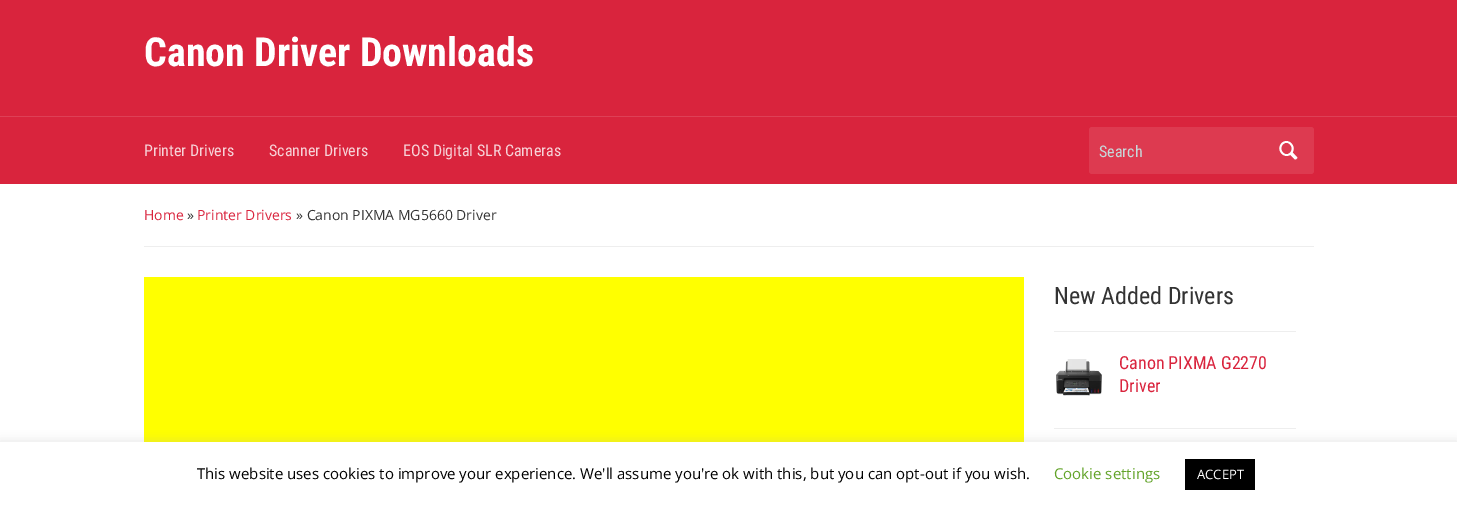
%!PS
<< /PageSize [1457 507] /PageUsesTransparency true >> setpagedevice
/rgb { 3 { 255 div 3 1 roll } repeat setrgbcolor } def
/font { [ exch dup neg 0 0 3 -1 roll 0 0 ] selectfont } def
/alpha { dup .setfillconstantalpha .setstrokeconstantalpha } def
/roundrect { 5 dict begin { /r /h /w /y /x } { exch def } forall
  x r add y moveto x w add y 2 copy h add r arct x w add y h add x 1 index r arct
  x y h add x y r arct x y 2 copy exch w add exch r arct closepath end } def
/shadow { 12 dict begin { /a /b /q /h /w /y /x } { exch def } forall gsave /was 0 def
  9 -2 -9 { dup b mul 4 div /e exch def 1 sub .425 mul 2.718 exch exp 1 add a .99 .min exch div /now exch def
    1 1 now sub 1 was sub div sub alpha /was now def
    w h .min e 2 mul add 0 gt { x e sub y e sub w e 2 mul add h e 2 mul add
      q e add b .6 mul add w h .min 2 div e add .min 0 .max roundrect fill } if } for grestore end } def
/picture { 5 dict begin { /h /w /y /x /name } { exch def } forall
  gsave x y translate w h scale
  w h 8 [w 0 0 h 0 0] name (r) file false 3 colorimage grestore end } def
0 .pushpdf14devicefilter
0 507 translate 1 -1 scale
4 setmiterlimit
255 255 255 rgb
0 0 1457 507 rectfill
217 36 61 rgb
0 0 1457 184 rectfill
222 64 86 rgb
0 116 1457 1 rectfill
221 58 80 rgb
1089 127 225 47 3 roundrect fill
(img/1.rgb) 1279 141 19 19 picture
[
  [144 246 1170 1 238 238 238]
  [144 277 880 165 255 255 0]
  [1054 331 242 1 238 238 238]
  [1054 428 242 1 238 238 238]
] { aload pop rgb rectfill } forall
(img/2.rgb) 1056 359 46 37 picture
172 171 171 rgb
0 441 1457 65 0 5 0.3 shadow
255 255 255 rgb
0 442 1457 65 rectfill
0 0 0 rgb
1185 459 70 31 rectfill
/RobotoCondensed-Bold 40 font
255 255 255 rgb
144 66 moveto (Canon Driver Downloads) show
/RobotoCondensed-Regular 16 font
247 211 216 rgb
[
  [(Printer Drivers) 144 156]
  [(Scanner Drivers) 269 156]
  [(EOS Digital SLR Cameras) 403 156]
] { aload pop moveto show } forall
198 217 219 rgb
1099 157 moveto (Search) show
/OpenSans-Regular 14 font
217 36 61 rgb
144 220 moveto (Home) show
51 51 51 rgb
187 220 moveto (») show
217 36 61 rgb
197 220 moveto (Printer Drivers) show
51 51 51 rgb
296 220 moveto (» Canon PIXMA MG5660 Driver) show
/RobotoCondensed-Regular 24 font
1054 304 moveto (New Added Drivers) show
/RobotoCondensed-Regular 18 font
217 36 61 rgb
1119 369 moveto (Canon PIXMA G2270) show
1119 392 moveto (Driver) show
/OpenSans-Regular 15 font
0 0 0 rgb
197 479 moveto (This website uses cookies to improve your experience. We'll assume you're ok with this, but you can opt-out if you wish.) show
98 163 41 rgb
1054 479 moveto (Cookie settings) show
/OpenSans-Regular 13 font
255 255 255 rgb
1197 479 moveto (ACCEPT) show
.poppdf14devicefilter showpage
